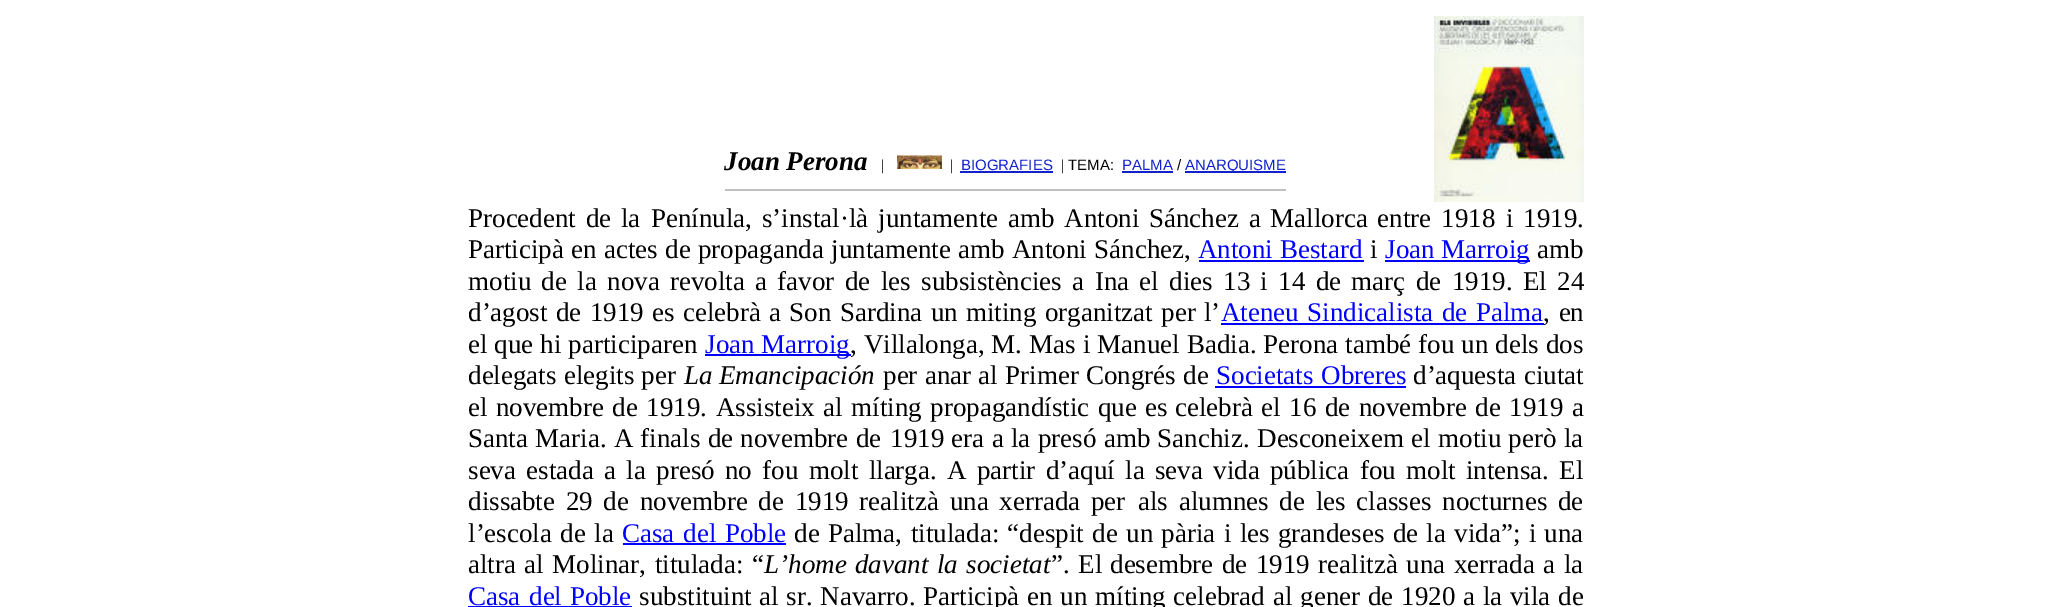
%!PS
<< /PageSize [2051 607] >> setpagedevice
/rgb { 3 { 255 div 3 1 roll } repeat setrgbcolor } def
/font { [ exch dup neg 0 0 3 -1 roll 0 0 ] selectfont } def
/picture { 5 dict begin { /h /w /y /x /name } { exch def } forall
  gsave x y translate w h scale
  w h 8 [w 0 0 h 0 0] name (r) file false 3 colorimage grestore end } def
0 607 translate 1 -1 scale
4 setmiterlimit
255 255 255 rgb
0 0 2051 607 rectfill
(img/1.rgb) 897 155 45 14 picture
[
  [960 171 93 2 17 34 204]
  [1122 171 51 2 17 34 204]
  [1185 171 101 2 17 34 204]
  [725 189 561 2 192 192 192]
] { aload pop rgb rectfill } forall
(img/2.rgb) 1434 16 150 186 picture
[
  [1199 260 165 2 0 0 255]
  [1385 260 145 2 0 0 255]
  [1221 323 323 2 0 0 255]
  [705 354 146 2 0 0 255]
  [1215 386 191 2 0 0 255]
  [623 543 163 2 0 0 255]
  [468 606 164 1 0 0 255]
] { aload pop rgb rectfill } forall
/LiberationSerif-BoldItalic 27 font
0 0 0 rgb
724 170 moveto (Joan Perona) show
/LiberationSerif-Regular 15 font
881 170 moveto (|) show
950 170 moveto (|) show
/LiberationSans-Regular 15 font
17 34 204 rgb
961 170 moveto (BIOGRAFIES) show
/LiberationSerif-Regular 15 font
0 0 0 rgb
1061 170 moveto (|) show
/LiberationSans-Regular 15 font
1068 170 moveto (TEMA:) show
17 34 204 rgb
1122 170 moveto (PALMA) show
0 0 0 rgb
1177 170 moveto (/) show
17 34 204 rgb
1185 170 moveto (ANARQUISME) show
/LiberationSerif-Regular 27 font
0 0 0 rgb
468 227 moveto 3 0 32 (Procedent de la) widthshow
651 227 moveto 3 0 32 (Penínula, s’instal·là juntamente amb Antoni Sánchez a Mallorca entre 1918) widthshow
1506 227 moveto 3 0 32 (i 1919.) widthshow
468 258 moveto 0.5 0 32 (Participà en actes de propaganda juntamente amb Antoni Sánchez,) widthshow
0 0 255 rgb
1198 258 moveto (Antoni Bestard) show
0 0 0 rgb
1370 258 moveto (i) show
0 0 255 rgb
1385 258 moveto (Joan Marroig) show
0 0 0 rgb
1537 258 moveto (amb) show
468 290 moveto 3.6 0 32 (motiu de la nova revolta a favor de les) widthshow
921 290 moveto 3.6 0 32 (subsistències a Ina el dies 13 i 14 de març de 1919. El 24) widthshow
468 321 moveto 1.6 0 32 (d’agost de 1919) widthshow
652 321 moveto 1.6 0 32 (es celebrà a Son Sardina un miting organitzat per l’) widthshow
0 0 255 rgb
1221 321 moveto 1.6 0 32 (Ateneu Sindicalista de) widthshow
1476 321 moveto (Palma) show
0 0 0 rgb
1543 321 moveto 2 0 32 (, en) widthshow
468 353 moveto 0.25 0 32 (el que hi participaren) widthshow
0 0 255 rgb
705 353 moveto (Joan Marroig) show
0 0 0 rgb
850 353 moveto 0.25 0 32 (, Villalonga, M. Mas i Manuel Badia. Perona també fou un dels dos) widthshow
468 384 moveto 0.5 0 32 (delegats elegits per) widthshow
/LiberationSerif-Italic 27 font
684 384 moveto (La) show
719 384 moveto (Emancipación) show
/LiberationSerif-Regular 27 font
883 384 moveto 0.5 0 32 (per anar al Primer Congrés de) widthshow
0 0 255 rgb
1216 384 moveto 1 0 32 (Societats Obreres) widthshow
0 0 0 rgb
1413 384 moveto (d’aquesta) show
1524 384 moveto (ciutat) show
468 416 moveto 1.75 0 32 (el novembre de 1919. Assisteix al míting propagandístic que es) widthshow
1175 416 moveto 1.75 0 32 (celebrà el 16 de novembre de 1919 a) widthshow
468 447 moveto 0.5 0 32 (Santa Maria. A finals de novembre de) widthshow
890 447 moveto 0.6 0 32 (1919 era a la presó amb Sanchiz. Desconeixem el motiu però la) widthshow
468 479 moveto 3.6 0 32 (seva estada) widthshow
604 479 moveto 3.6 0 32 (a la presó no fou molt llarga. A partir d’aquí la seva vida pública fou) widthshow
1406 479 moveto 3.6 0 32 (molt intensa. El) widthshow
468 510 moveto 4 0 32 (dissabte 29 de novembre de 1919 realitzà una xerrada per) widthshow
1138 510 moveto 4 0 32 (als alumnes de les classes nocturnes de) widthshow
468 542 moveto 1.6 0 32 (l’escola de la) widthshow
0 0 255 rgb
622 542 moveto 2 0 32 (Casa del Poble) widthshow
0 0 0 rgb
794 542 moveto (de) show
828 542 moveto 1.6 0 32 (Palma, titulada: “despit de un pària i les grandeses de la vida”; i una) widthshow
468 573 moveto 1.75 0 32 (altra al Molinar, titulada: “) widthshow
/LiberationSerif-Italic 27 font
764 573 moveto 1.75 0 32 (L’home davant la societat) widthshow
/LiberationSerif-Regular 27 font
1051 573 moveto 1.75 0 32 (”. El) widthshow
1110 573 moveto 1.75 0 32 (desembre de 1919 realitzà una xerrada a la) widthshow
0 0 255 rgb
468 605 moveto (Casa) show
529 605 moveto 1 0 32 (del Poble) widthshow
0 0 0 rgb
639 605 moveto 1 0 32 (substituint al sr. Navarro. Participà en un míting celebrad) widthshow
1273 605 moveto 1 0 32 (al gener de 1920 a la vila de) widthshow
showpage
